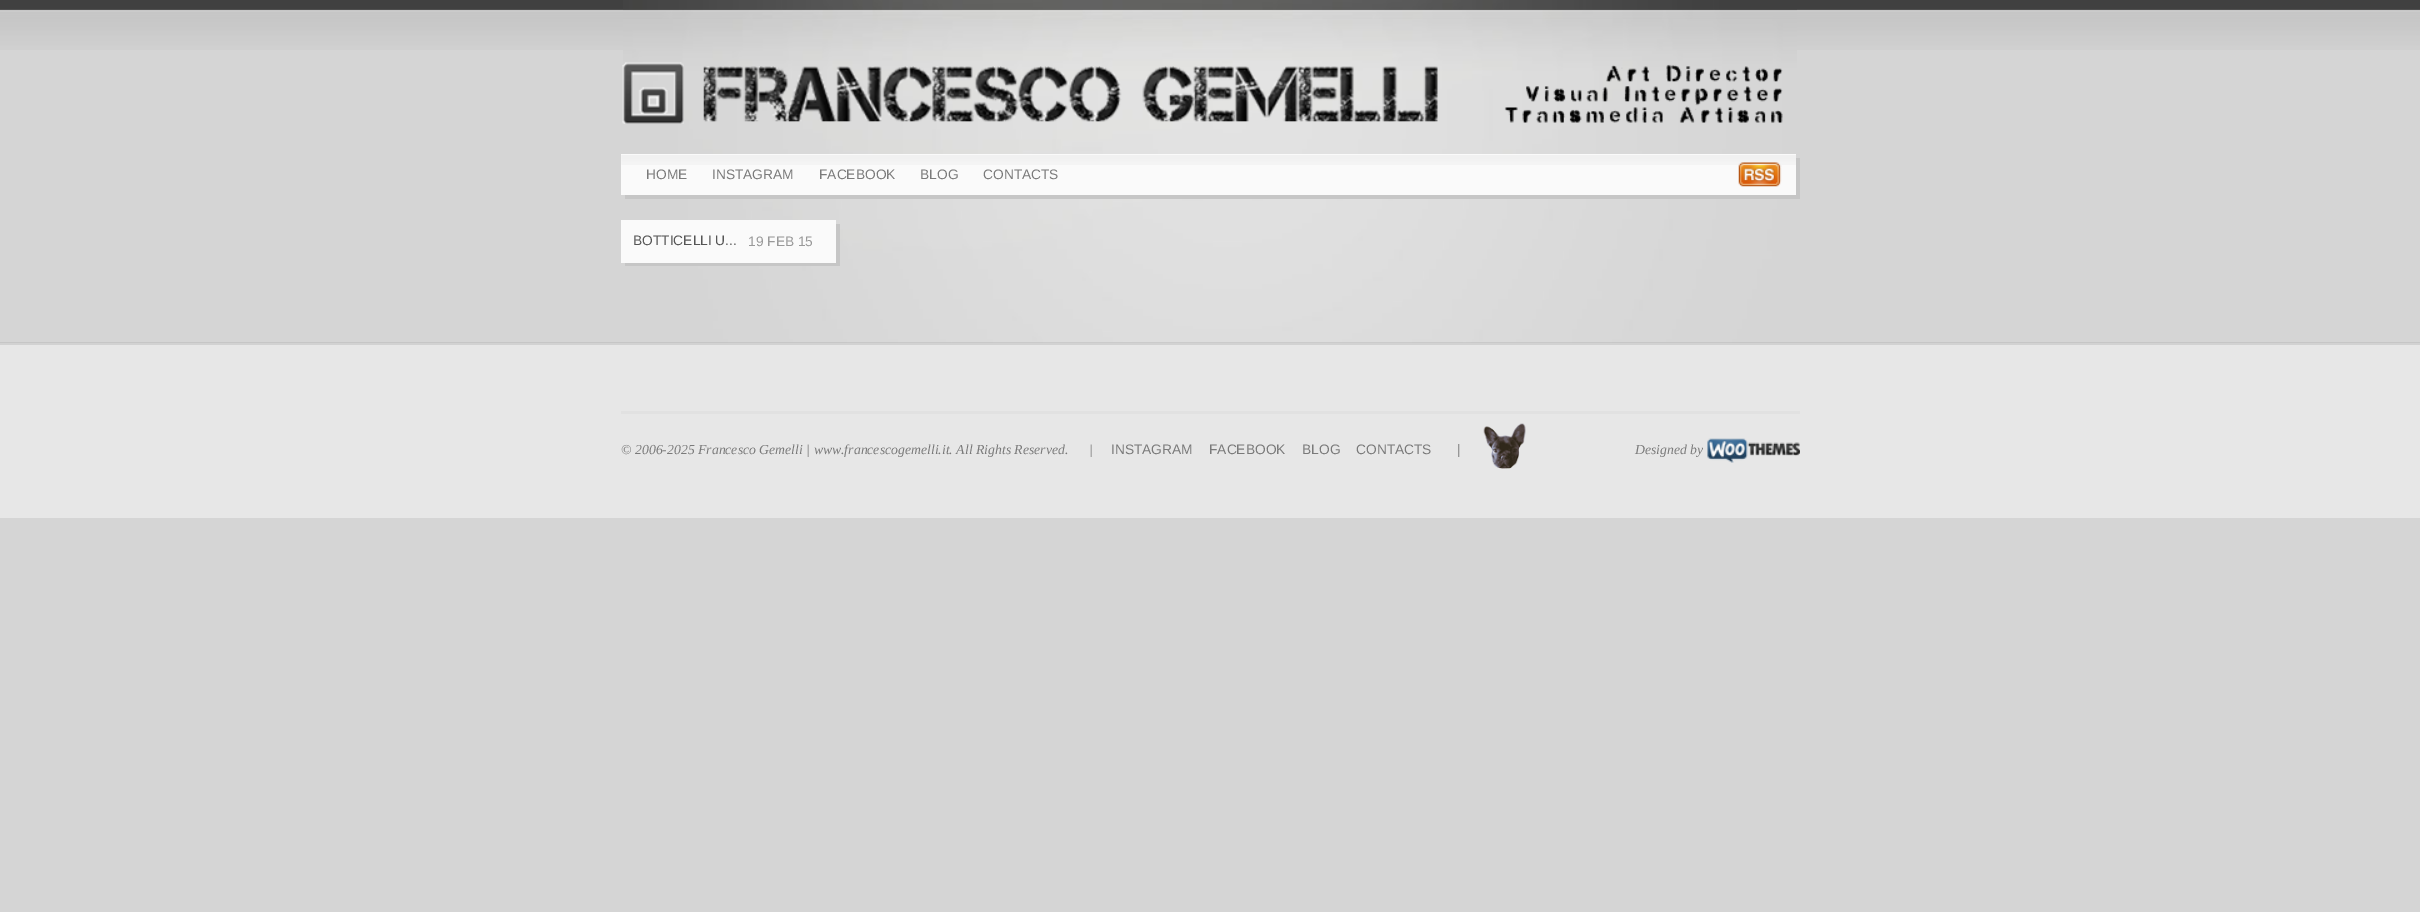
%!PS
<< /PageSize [2420 912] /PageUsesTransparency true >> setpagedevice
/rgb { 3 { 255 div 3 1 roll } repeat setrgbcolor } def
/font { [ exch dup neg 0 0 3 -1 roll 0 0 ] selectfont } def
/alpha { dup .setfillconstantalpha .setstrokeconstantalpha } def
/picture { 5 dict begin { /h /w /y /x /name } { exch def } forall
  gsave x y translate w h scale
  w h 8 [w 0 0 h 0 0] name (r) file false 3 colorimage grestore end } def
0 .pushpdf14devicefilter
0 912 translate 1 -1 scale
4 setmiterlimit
213 213 213 rgb
0 0 2420 912 rectfill
(img/1.rgb) 0 0 2420 50 picture
(img/2.rgb) 623 0 1174 343 picture
(img/3.rgb) 622 62 1161 62 picture
198 198 198 rgb
625 158 1175 41 rectfill
250 250 250 rgb
621 154 1175 41 rectfill
(img/4.rgb) 621 155 1175 10 picture
(img/5.rgb) 1738 162 44 25 picture
[
  [625 224 215 42 198 198 198]
  [621 220 215 43 250 250 250]
  [0 343 2420 175 231 231 231]
] { aload pop rgb rectfill } forall
0.34 alpha
[
  [0 342 2420 3 169 169 169]
] { aload pop rgb rectfill } forall
1 alpha
[
  [621 411 1179 3 225 225 225]
] { aload pop rgb rectfill } forall
(img/6.rgb) 1483 423 43 46 picture
(img/7.rgb) 1707 438 93 25 picture
/LiberationSans-Regular 13.75 font
122 122 122 rgb
[
  [(HOME) 646 179]
  [(INSTAGRAM) 712 179]
  [(FACEBOOK) 819 179]
  [(BLOG) 920 179]
  [(CONTACTS) 983 179]
] { aload pop moveto show } forall
85 85 85 rgb
633 245 moveto (BOTTICELLI U...) show
153 153 153 rgb
748 246 moveto (19 FEB 15) show
/LiberationSerif-Italic 13.75 font
122 122 122 rgb
621 454 moveto (© 2006-2025 Francesco Gemelli | www.francescogemelli.it. All Rights Reserved.      |) show
/LiberationSans-Regular 13.75 font
[
  [(INSTAGRAM) 1111 454]
  [(FACEBOOK) 1209 454]
  [(BLOG) 1302 454]
  [(CONTACTS) 1356 454]
  [(|) 1457 454]
] { aload pop moveto show } forall
/LiberationSerif-Italic 13.75 font
1635 454 moveto (Designed by) show
.poppdf14devicefilter showpage
